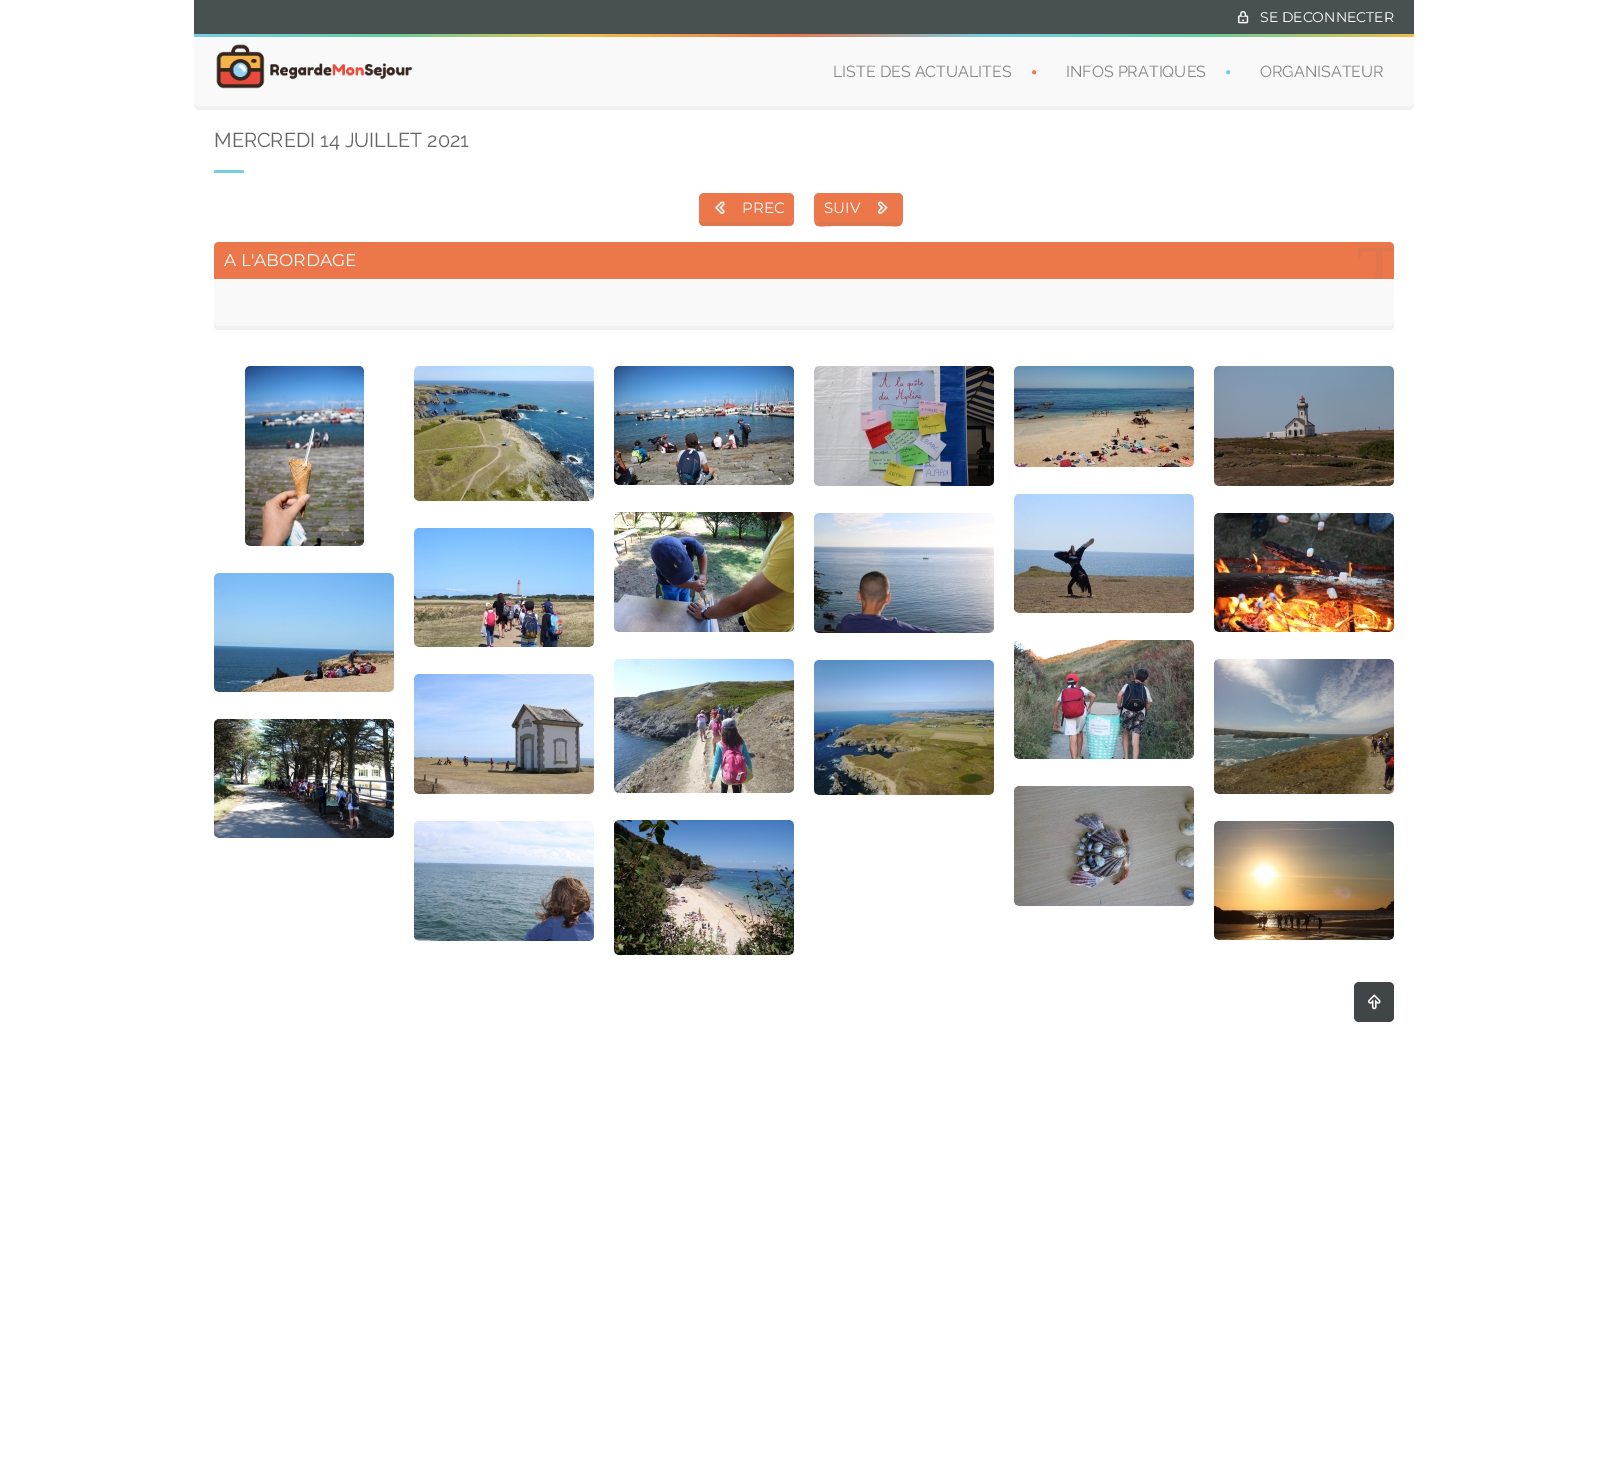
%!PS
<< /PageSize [1608 1463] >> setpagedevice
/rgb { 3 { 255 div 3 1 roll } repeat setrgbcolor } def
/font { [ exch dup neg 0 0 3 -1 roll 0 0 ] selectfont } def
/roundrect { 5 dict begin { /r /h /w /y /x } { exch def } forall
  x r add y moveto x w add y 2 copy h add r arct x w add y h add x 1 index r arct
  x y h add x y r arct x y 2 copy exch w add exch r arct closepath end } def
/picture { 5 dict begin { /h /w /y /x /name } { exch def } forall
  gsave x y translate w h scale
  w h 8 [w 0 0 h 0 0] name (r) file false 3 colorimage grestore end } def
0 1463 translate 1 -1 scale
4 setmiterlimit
255 255 255 rgb
0 0 1608 1463 rectfill
73 80 82 rgb
194 0 1220 34 rectfill
(img/1.rgb) 1238 10 11 14 picture
gsave 194 34 moveto 1414 34 lineto 1414 37 lineto 194 37 lineto closepath clip newpath
<< /ShadingType 2 /ColorSpace /DeviceRGB /Coords [194 36 1414 35] /Extend [true true] /Function << /FunctionType 3 /Domain [0 1] /Functions [<< /FunctionType 2 /Domain [0 1] /C0 [0.455 0.808 0.894] /C1 [0.4 0.808 0.612] /N 1 >> << /FunctionType 2 /Domain [0 1] /C0 [0.4 0.808 0.612] /C1 [0.929 0.749 0.278] /N 1 >> << /FunctionType 2 /Domain [0 1] /C0 [0.929 0.749 0.278] /C1 [0.925 0.467 0.294] /N 1 >> << /FunctionType 2 /Domain [0 1] /C0 [0.925 0.467 0.294] /C1 [0.455 0.808 0.894] /N 1 >> << /FunctionType 2 /Domain [0 1] /C0 [0.455 0.808 0.894] /C1 [0.4 0.808 0.612] /N 1 >> << /FunctionType 2 /Domain [0 1] /C0 [0.4 0.808 0.612] /C1 [0.929 0.749 0.278] /N 1 >>] /Bounds [0.16 0.32 0.49 0.65 0.83] /Encode [0 1 0 1 0 1 0 1 0 1 0 1] >> >> shfill grestore
241 241 241 rgb
194 101 moveto 194 105 194 110 199 110 curveto 1409 110 lineto 1414 110 1414 105 1414 101 curveto 1414 104 1412 106 1409 106 curveto 199 106 lineto 196 106 194 104 194 101 curveto closepath fill
249 249 249 rgb
194 37 moveto 1414 37 lineto 1414 101 lineto 1414 104 1412 106 1409 106 curveto 199 106 lineto 196 106 194 104 194 101 curveto closepath fill
(img/2.rgb) 216 44 197 45 picture
(img/3.rgb) 1032 70 5 5 picture
(img/4.rgb) 1226 70 5 5 picture
116 206 228 rgb
214 170 30 3 1.5 roundrect fill
223 118 78 rgb
699 217 moveto 699 221 lineto 699 224 701 226 704 226 curveto 789 226 lineto 792 226 794 224 794 221 curveto 794 217 lineto 794 220 792 222 789 222 curveto 704 222 lineto 701 222 699 220 699 217 curveto closepath fill
236 119 75 rgb
699 193 95 29 5 roundrect fill
(img/5.rgb) 715 201 10 13 picture
223 118 78 rgb
814 217 moveto 814 229 819 226 832 226 curveto 885 226 lineto 898 226 903 229 903 217 curveto 903 220 901 222 898 222 curveto 819 222 lineto 816 222 814 220 814 217 curveto closepath fill
236 119 75 rgb
814 193 89 29 5 roundrect fill
(img/6.rgb) 878 201 10 13 picture
241 241 241 rgb
214 321 moveto 214 325 lineto 214 328 216 330 219 330 curveto 1389 330 lineto 1392 330 1394 328 1394 325 curveto 1394 321 lineto 1394 324 1392 326 1389 326 curveto 219 326 lineto 216 326 214 324 214 321 curveto closepath fill
249 249 249 rgb
214 242 1180 84 5 roundrect fill
236 119 75 rgb
219 242 moveto 1389 242 lineto 1392 242 1394 244 1394 247 curveto 1394 279 lineto 214 279 lineto 214 247 lineto 214 244 216 242 219 242 curveto closepath fill
(img/7.rgb) 1358 247 36 32 picture
(img/8.rgb) 245 366 119 180 picture
(img/9.rgb) 414 366 180 135 picture
(img/10.rgb) 614 366 180 119 picture
(img/11.rgb) 814 366 180 120 picture
(img/12.rgb) 1014 366 180 101 picture
(img/13.rgb) 1214 366 180 120 picture
(img/14.rgb) 214 573 180 119 picture
(img/15.rgb) 414 528 180 119 picture
(img/16.rgb) 614 512 180 120 picture
(img/17.rgb) 814 513 180 120 picture
(img/18.rgb) 1014 494 180 119 picture
(img/19.rgb) 1214 513 180 119 picture
(img/20.rgb) 214 719 180 119 picture
(img/21.rgb) 414 674 180 120 picture
(img/22.rgb) 614 659 180 134 picture
(img/23.rgb) 814 660 180 135 picture
(img/24.rgb) 1014 640 180 119 picture
(img/25.rgb) 1214 659 180 135 picture
(img/26.rgb) 414 821 180 120 picture
(img/27.rgb) 614 820 180 135 picture
(img/28.rgb) 1014 786 180 120 picture
(img/29.rgb) 1214 821 180 119 picture
64 69 71 rgb
1354 982 40 40 5 roundrect fill
(img/30.rgb) 1368 994 13 16 picture
/Montserrat-Regular 14 font
255 255 255 rgb
1260 22 moveto (SE DECONNECTER) show
/Raleway-Thin 16 font
134 133 133 rgb
[
  [(LISTE DES ACTUALITES) 833 77]
  [(INFOS PRATIQUES) 1066 77]
  [(ORGANISATEUR) 1260 77]
] { aload pop moveto show } forall
/Raleway-Thin 20 font
102 101 101 rgb
214 147 moveto (MERCREDI 14 JUILLET 2021) show
/Montserrat-Regular 15 font
255 255 255 rgb
742 213 moveto (PREC) show
824 213 moveto (SUIV) show
/Montserrat-Regular 17 font
224 266 moveto (A L'ABORDAGE) show
showpage
